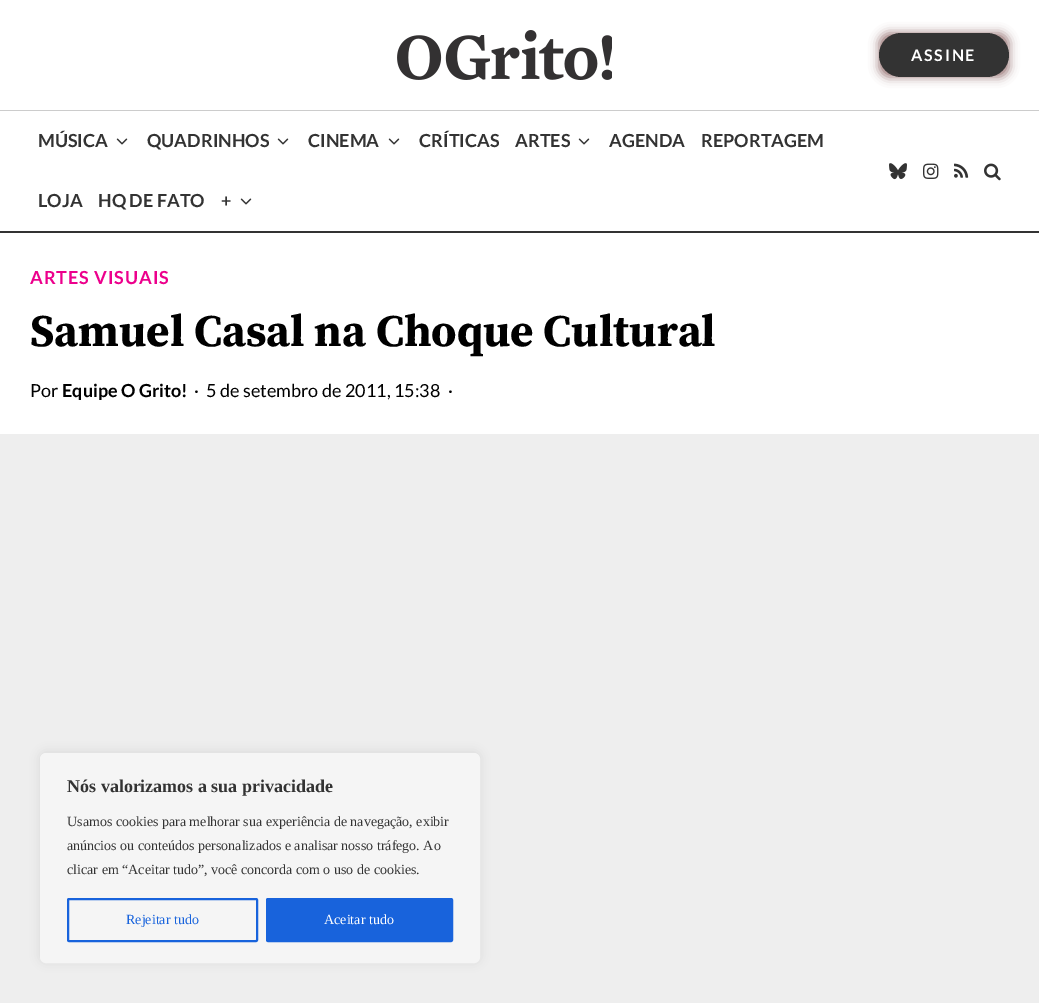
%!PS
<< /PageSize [1039 1003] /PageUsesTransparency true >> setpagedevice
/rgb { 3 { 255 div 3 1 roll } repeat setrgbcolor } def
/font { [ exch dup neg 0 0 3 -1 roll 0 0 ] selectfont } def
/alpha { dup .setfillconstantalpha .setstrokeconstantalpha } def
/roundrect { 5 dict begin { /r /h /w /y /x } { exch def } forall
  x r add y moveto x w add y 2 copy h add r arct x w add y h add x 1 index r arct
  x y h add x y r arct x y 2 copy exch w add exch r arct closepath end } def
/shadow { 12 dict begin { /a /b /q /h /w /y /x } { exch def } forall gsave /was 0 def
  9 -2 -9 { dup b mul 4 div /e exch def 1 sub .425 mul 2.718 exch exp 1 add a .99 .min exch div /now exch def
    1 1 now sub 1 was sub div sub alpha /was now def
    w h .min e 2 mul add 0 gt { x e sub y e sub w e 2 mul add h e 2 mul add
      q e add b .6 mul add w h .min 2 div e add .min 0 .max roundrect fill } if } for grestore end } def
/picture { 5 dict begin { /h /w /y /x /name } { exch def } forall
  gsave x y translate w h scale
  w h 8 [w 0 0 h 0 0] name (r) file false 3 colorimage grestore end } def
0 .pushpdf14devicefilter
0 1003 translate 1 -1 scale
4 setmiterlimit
255 255 255 rgb
0 0 1039 1003 rectfill
(img/1.rgb) 397 30 215 50 picture
152 115 115 rgb
879 33 130 44 10 5 1 shadow
51 51 51 rgb
879 33 130 44 22 roundrect fill
204 204 204 rgb
0 110 1039 1 rectfill
51 51 51 rgb
0 231 1039 2 rectfill
(img/2.rgb) 116 138 12 7 picture
(img/2.rgb) 277 138 12 7 picture
(img/2.rgb) 388 138 12 7 picture
(img/2.rgb) 578 138 12 7 picture
(img/2.rgb) 240 198 12 7 picture
(img/3.rgb) 889 163 18 17 picture
(img/4.rgb) 923 163 16 16 picture
(img/5.rgb) 954 163 15 15 picture
(img/6.rgb) 984 163 17 18 picture
238 238 238 rgb
0 434 1039 569 rectfill
172 171 171 rgb
40 752 440 210 6 5 0.3 shadow
245 245 245 rgb
40.5 753.5 439 209 5.5 roundrect gsave fill grestore
stroke
24 99 220 rgb
2 setlinewidth
68 899 189 42 1 roundrect stroke
267 899 185 42 1 roundrect gsave fill grestore
stroke
/Lato-Bold 16 font
255 255 255 rgb
911 61 moveto 1.75 0 (ASSINE) ashow
/Lato-Bold 18 font
51 51 51 rgb
[
  [(MÚSICA) 38 147]
  [(QUADRINHOS) 147 147]
  [(CINEMA) 308 147]
  [(CRÍTICAS) 419 147]
  [(ARTES) 515 147]
  [(AGENDA) 609 147]
  [(REPORTAGEM) 701 147]
  [(LOJA) 38 207]
  [(HQ DE FATO) 98 207]
  [(+) 221 207]
] { aload pop moveto show } forall
236 0 140 rgb
30 284 moveto 0.9 0 (ARTES VISUAIS) ashow
/SourceSerifPro-Bold 45 font
0 0 0 rgb
30 346 moveto (Samuel Casal na Choque Cultural) show
/Lato-Regular 18 font
30 397 moveto (Por) show
/Lato-Bold 18 font
62 397 moveto (Equipe O Grito!) show
/Lato-Regular 18 font
[
  [(·) 194 397]
  [(5 de setembro de 2011, 15:38) 206 397]
  [(·) 448 397]
] { aload pop moveto show } forall
/LiberationSerif-Bold 18 font
51 51 51 rgb
67 792 moveto (Nós valorizamos a sua privacidade) show
/LiberationSerif-Regular 14 font
[
  [(Usamos cookies para melhorar sua experiência de navegação, exibir) 67 826]
  [(anúncios ou conteúdos personalizados e analisar nosso tráfego. Ao) 67 850]
  [(clicar em “Aceitar tudo”, você concorda com o uso de cookies.) 67 874]
] { aload pop moveto show } forall
24 99 220 rgb
126 924 moveto (Rejeitar tudo) show
255 255 255 rgb
324 924 moveto (Aceitar tudo) show
.poppdf14devicefilter showpage
